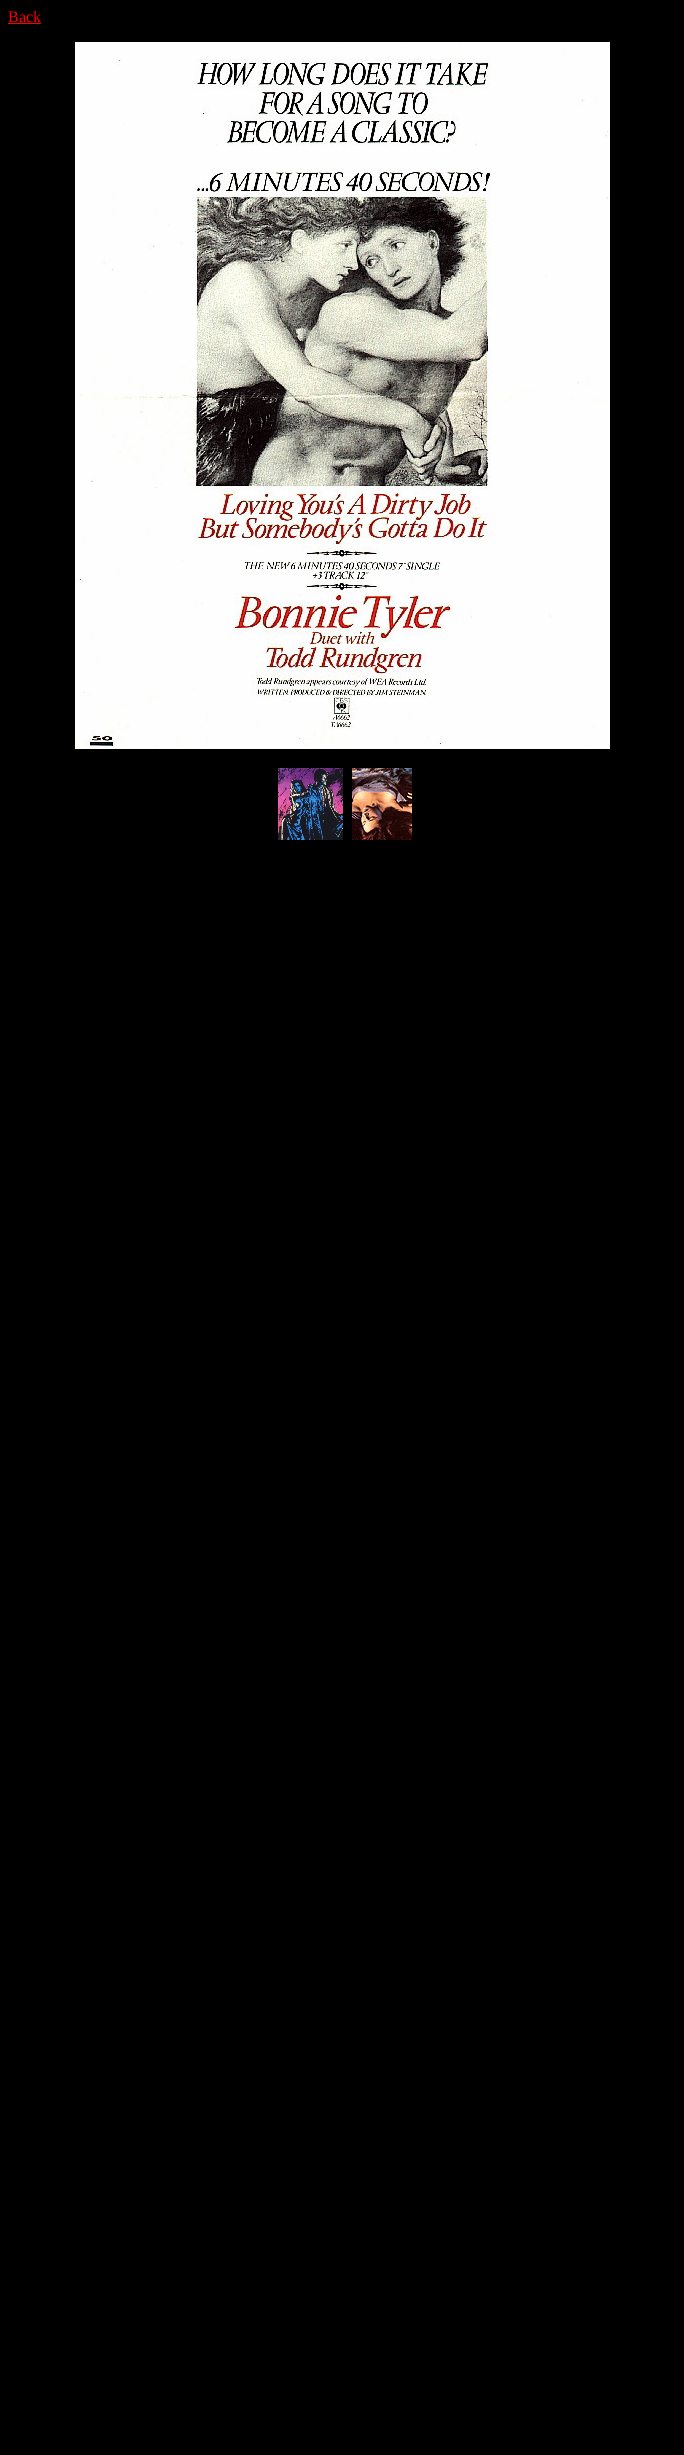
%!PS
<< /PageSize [684 2455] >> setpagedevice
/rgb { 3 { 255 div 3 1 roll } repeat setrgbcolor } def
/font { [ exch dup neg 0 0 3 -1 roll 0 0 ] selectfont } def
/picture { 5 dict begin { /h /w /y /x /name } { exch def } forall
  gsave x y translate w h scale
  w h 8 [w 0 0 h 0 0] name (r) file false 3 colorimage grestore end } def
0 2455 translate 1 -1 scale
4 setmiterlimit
0 0 0 rgb
0 0 684 2455 rectfill
255 0 0 rgb
8 23 33 1 rectfill
(img/1.rgb) 75 42 535 707 picture
(img/2.rgb) 278 768 65 72 picture
(img/3.rgb) 352 768 60 72 picture
/LiberationSerif-Regular 16 font
8 22 moveto (Back) show
showpage
